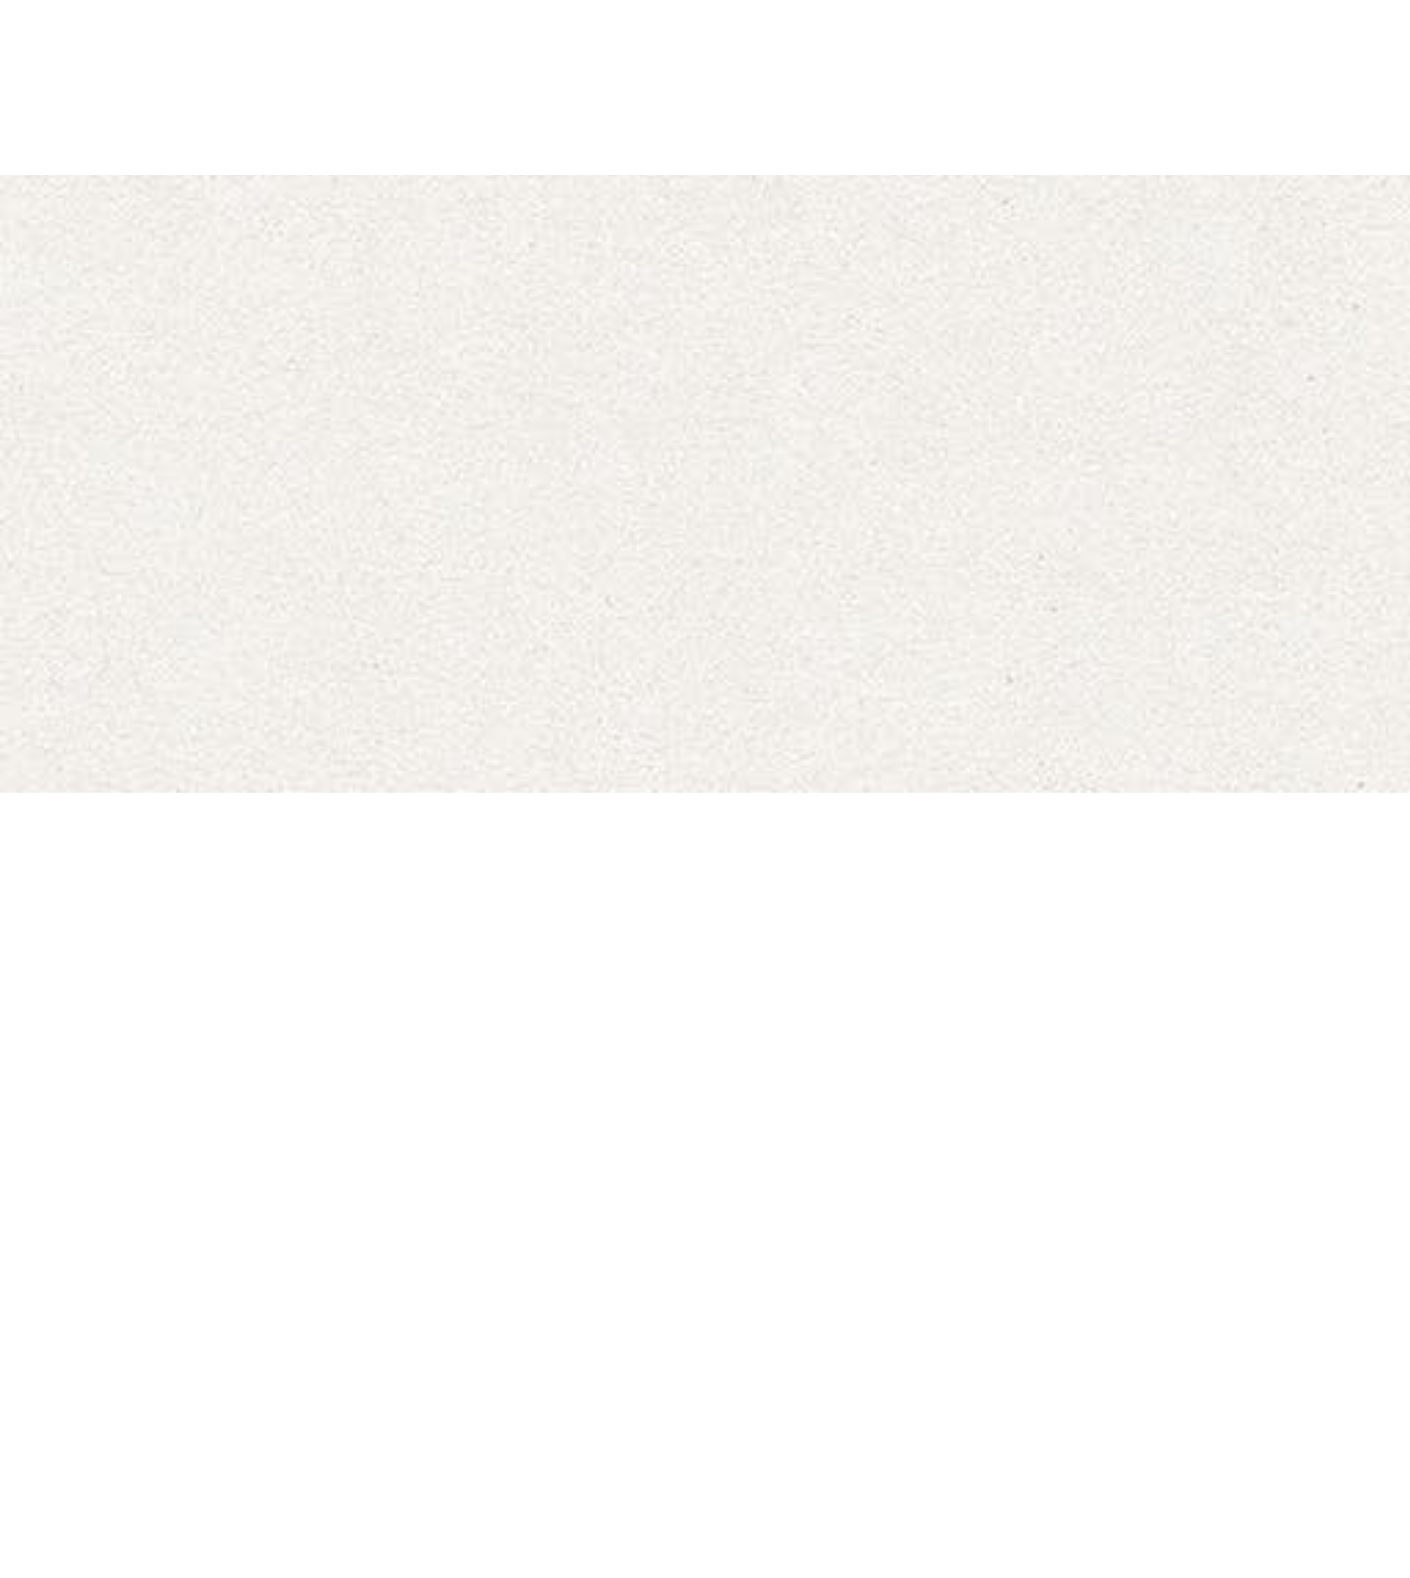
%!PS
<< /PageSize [1410 1578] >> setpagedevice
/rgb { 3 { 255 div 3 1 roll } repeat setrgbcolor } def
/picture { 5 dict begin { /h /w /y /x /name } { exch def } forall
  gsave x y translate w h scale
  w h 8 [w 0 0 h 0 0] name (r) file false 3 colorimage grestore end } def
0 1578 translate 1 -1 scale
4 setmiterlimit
255 255 255 rgb
0 0 1410 1578 rectfill
(img/1.rgb) 0 175 1410 618 picture
showpage
